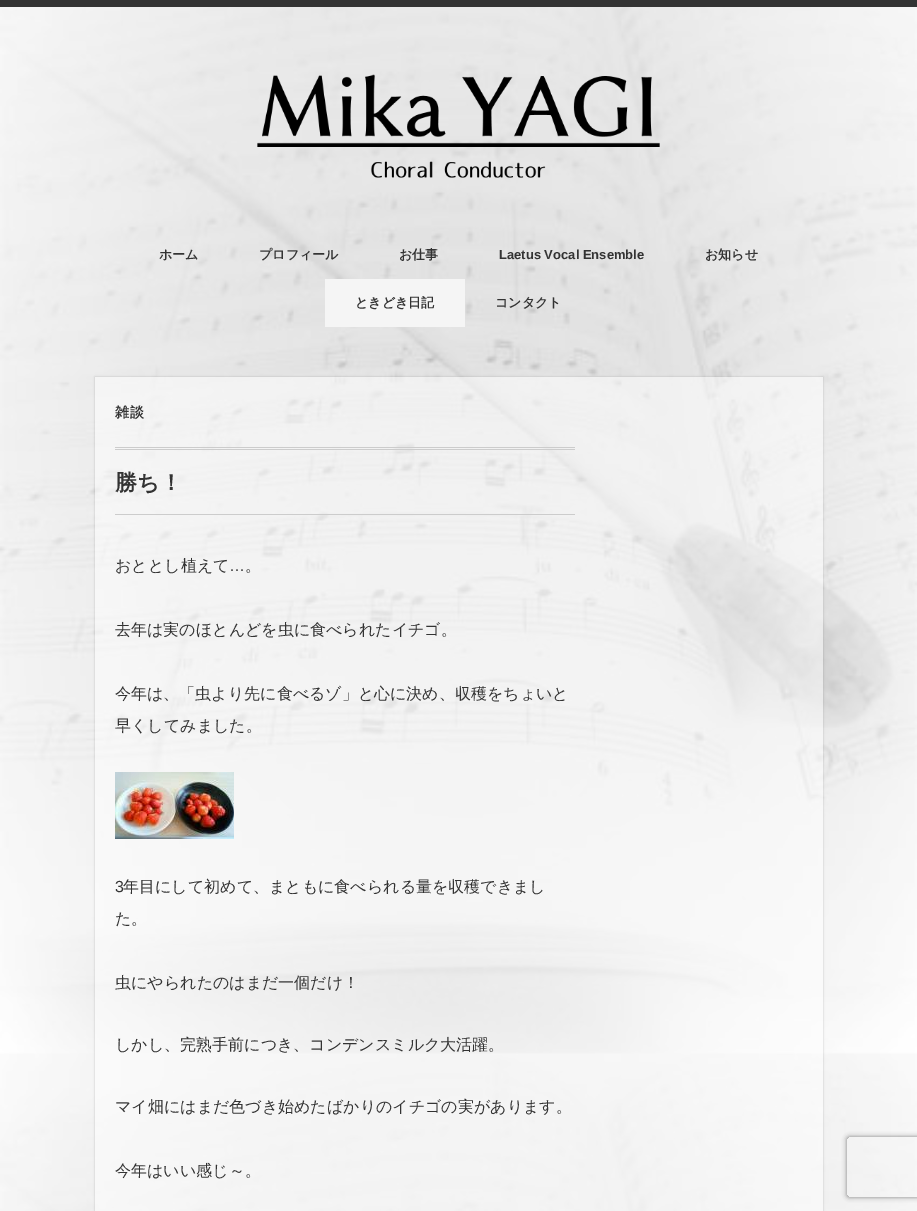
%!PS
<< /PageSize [917 1211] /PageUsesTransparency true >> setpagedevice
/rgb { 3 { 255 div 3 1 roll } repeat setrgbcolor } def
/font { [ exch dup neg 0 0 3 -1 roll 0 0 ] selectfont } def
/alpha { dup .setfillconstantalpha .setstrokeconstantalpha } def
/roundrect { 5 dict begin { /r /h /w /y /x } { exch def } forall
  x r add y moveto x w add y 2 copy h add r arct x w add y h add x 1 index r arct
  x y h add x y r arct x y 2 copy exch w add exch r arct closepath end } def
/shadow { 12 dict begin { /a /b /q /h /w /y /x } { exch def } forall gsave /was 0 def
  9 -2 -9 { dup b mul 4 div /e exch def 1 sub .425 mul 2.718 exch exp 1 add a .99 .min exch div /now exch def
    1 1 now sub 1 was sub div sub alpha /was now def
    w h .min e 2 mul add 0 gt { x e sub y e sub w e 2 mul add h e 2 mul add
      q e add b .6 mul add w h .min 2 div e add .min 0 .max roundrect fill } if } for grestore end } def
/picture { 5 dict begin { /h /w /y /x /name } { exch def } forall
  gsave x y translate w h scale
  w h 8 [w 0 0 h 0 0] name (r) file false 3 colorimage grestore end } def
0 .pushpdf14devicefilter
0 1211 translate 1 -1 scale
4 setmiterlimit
255 255 255 rgb
0 0 917 1211 rectfill
(img/1.rgb) 0 7 917 1204 picture
51 51 51 rgb
0 0 917 7 rectfill
(img/2.rgb) 257 74 403 104 picture
245 245 245 rgb
325 279 140 48 rectfill
gsave
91 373 moveto 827 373 lineto 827 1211 lineto 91 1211 lineto closepath 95 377 moveto 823 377 lineto 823 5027 lineto 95 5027 lineto closepath eoclip newpath
0 0 0 rgb
95 377 728 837 0 1 0.2 shadow
grestore
0.5 alpha
[
  [95 377 728 834 255 255 255]
] { aload pop rgb rectfill } forall
1 alpha
[
  [115 447 460 1 204 204 204]
  [115 449 460 1 204 204 204]
  [115 514 460 1 204 204 204]
] { aload pop rgb rectfill } forall
(img/3.rgb) 115 772 119 67 picture
gsave
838 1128 moveto 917 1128 lineto 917 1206 lineto 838 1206 lineto closepath 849 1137 moveto 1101 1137 lineto 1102 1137 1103 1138 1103 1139 curveto 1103 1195 lineto 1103 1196 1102 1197 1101 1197 curveto 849 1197 lineto 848 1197 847 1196 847 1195 curveto 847 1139 lineto 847 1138 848 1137 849 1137 curveto closepath eoclip newpath
128 128 128 rgb
847 1137 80 60 2 2.5 1 shadow
grestore
/WenQuanYiZenHei-Bold 13 font
51 51 51 rgb
[
  [(ホーム) 159 259]
  [(プロフィール) 259 259]
  [(お仕事) 399 259]
] { aload pop moveto show } forall
/LiberationSans-Bold 13 font
499 259 moveto (Laetus Vocal Ensemble) show
/WenQuanYiZenHei-Bold 13 font
[
  [(お知らせ) 705 259]
  [(ときどき日記) 355 307]
  [(コンタクト) 495 307]
] { aload pop moveto show } forall
/WenQuanYiZenHei-Bold 14 font
115 417 moveto 1 0 (雑談) ashow
/WenQuanYiZenHei-Bold 22 font
115 490 moveto (勝ち！) show
/WenQuanYiZenHei-Medium 16 font
115 571 moveto (おととし植えて) show
/LiberationSans-Regular 16 font
229 571 moveto (…) show
/WenQuanYiZenHei-Medium 16 font
[
  [(。) 245 571]
  [(去年は実のほとんどを虫に食べられたイチゴ。) 115 635]
  [(今年は、「虫より先に食べるゾ」と心に決め、収穫をちょいと) 115 699]
  [(早くしてみました。) 115 731]
] { aload pop moveto show } forall
/LiberationSans-Regular 16 font
115 892 moveto (3) show
/WenQuanYiZenHei-Medium 16 font
[
  [(年目にして初めて、まともに食べられる量を収穫できまし) 123 892]
  [(た。) 115 924]
  [(虫にやられたのはまだ一個だけ！) 115 988]
  [(しかし、完熟手前につき、コンデンスミルク大活躍。) 115 1050]
  [(マイ畑にはまだ色づき始めたばかりのイチゴの実があります。) 115 1112]
  [(今年はいい感じ～。) 115 1176]
] { aload pop moveto show } forall
.poppdf14devicefilter showpage
